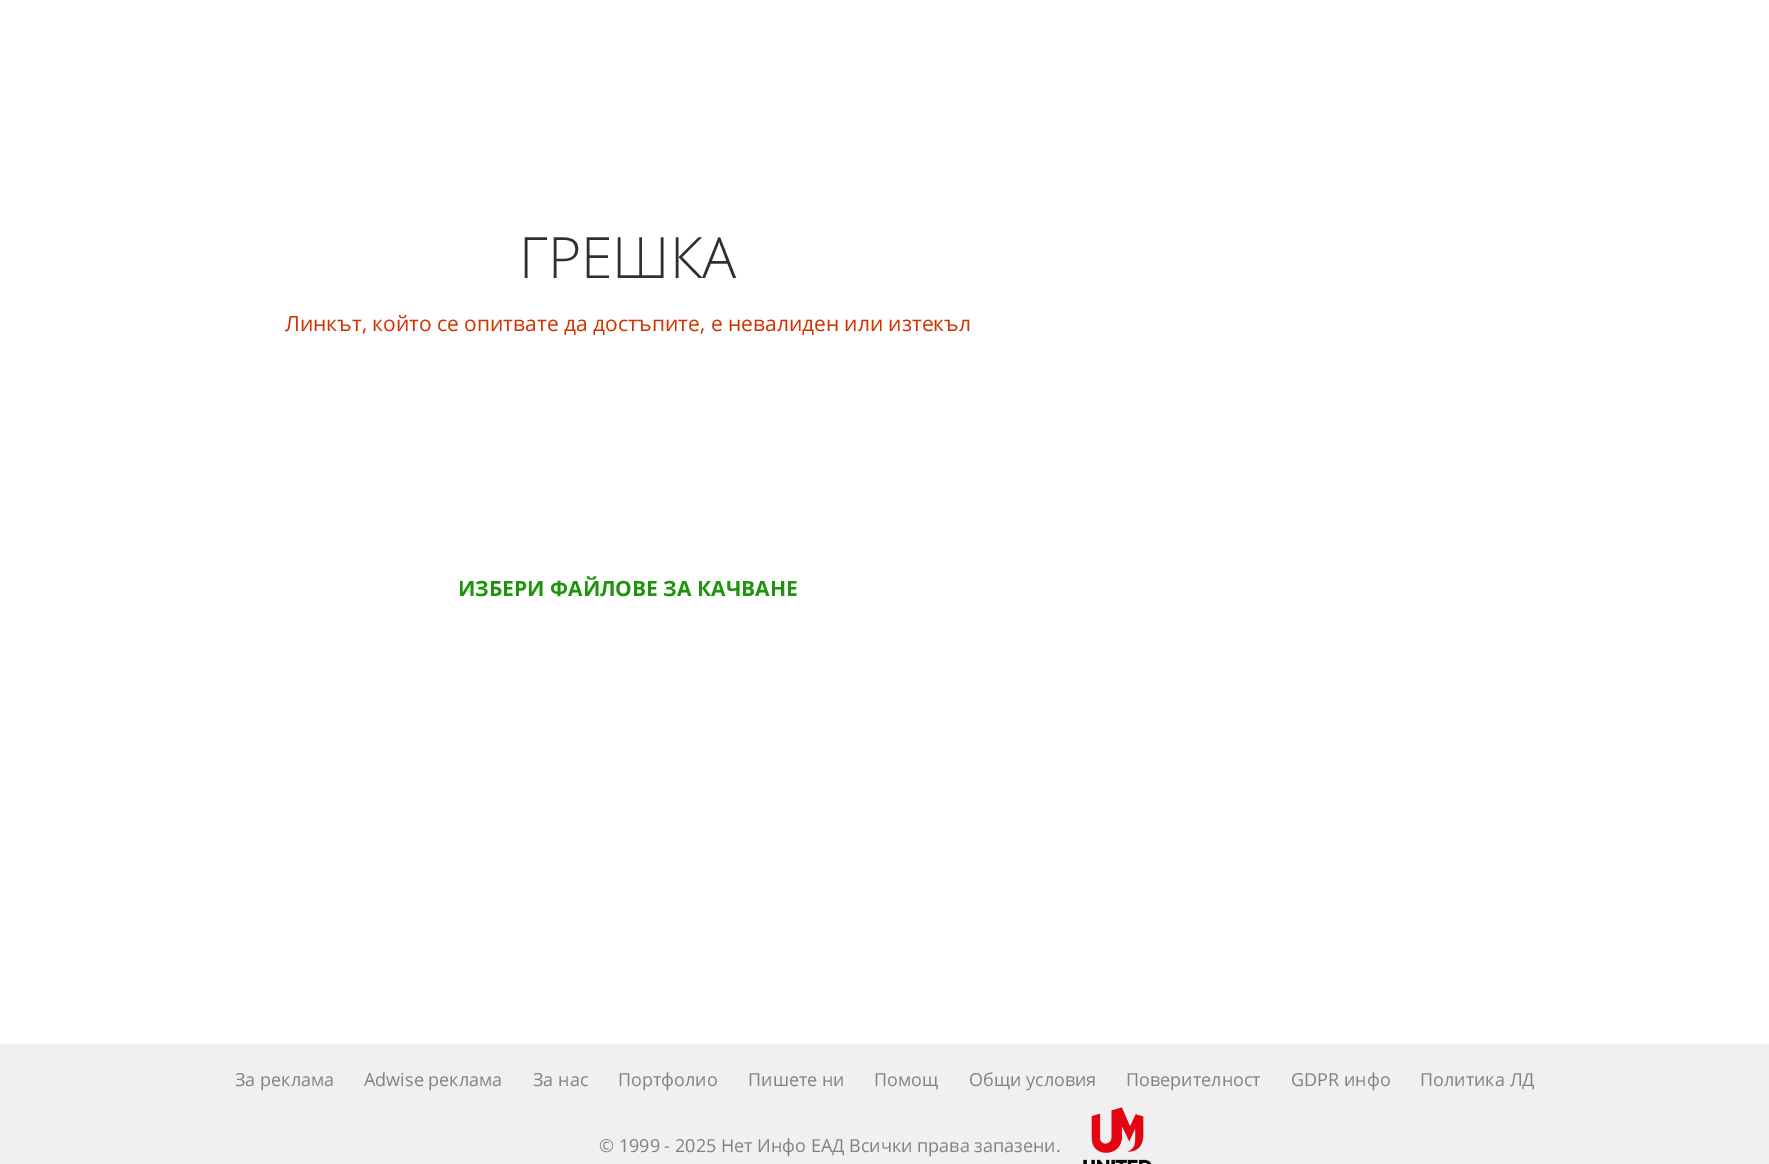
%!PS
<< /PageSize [1769 1164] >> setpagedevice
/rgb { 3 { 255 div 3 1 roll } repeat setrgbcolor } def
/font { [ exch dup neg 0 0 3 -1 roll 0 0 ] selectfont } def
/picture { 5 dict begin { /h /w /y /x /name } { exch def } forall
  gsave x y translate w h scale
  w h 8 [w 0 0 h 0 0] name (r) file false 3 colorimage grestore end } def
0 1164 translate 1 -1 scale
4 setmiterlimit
255 255 255 rgb
0 0 1769 1164 rectfill
240 240 240 rgb
0 1044 1769 120 rectfill
(img/1.rgb) 1083 1107 68 57 picture
/OpenSans-Light 57 font
47 47 47 rgb
519 278 moveto (ГРЕШКА) show
/OpenSans-Regular 21 font
210 49 0 rgb
285 331 moveto (Линкът, който се опитвате да достъпите, е невалиден или изтекъл) show
/OpenSans-Bold 21 font
30 147 12 rgb
458 596 moveto (ИЗБЕРИ ФАЙЛОВЕ ЗА КАЧВАНЕ) show
/OpenSans-Regular 18 font
130 130 130 rgb
[
  [(За реклама) 235 1086]
  [(Adwise реклама) 364 1086]
  [(За нас) 533 1086]
  [(Портфолио) 618 1086]
  [(Пишете ни) 748 1086]
  [(Помощ) 874 1086]
  [(Общи условия) 969 1086]
  [(Поверителност) 1126 1086]
  [(GDPR инфо) 1291 1086]
  [(Политика ЛД) 1420 1086]
  [(© 1999 - 2025 Нет Инфо EАД Всички права запазени.) 599 1152]
] { aload pop moveto show } forall
showpage
